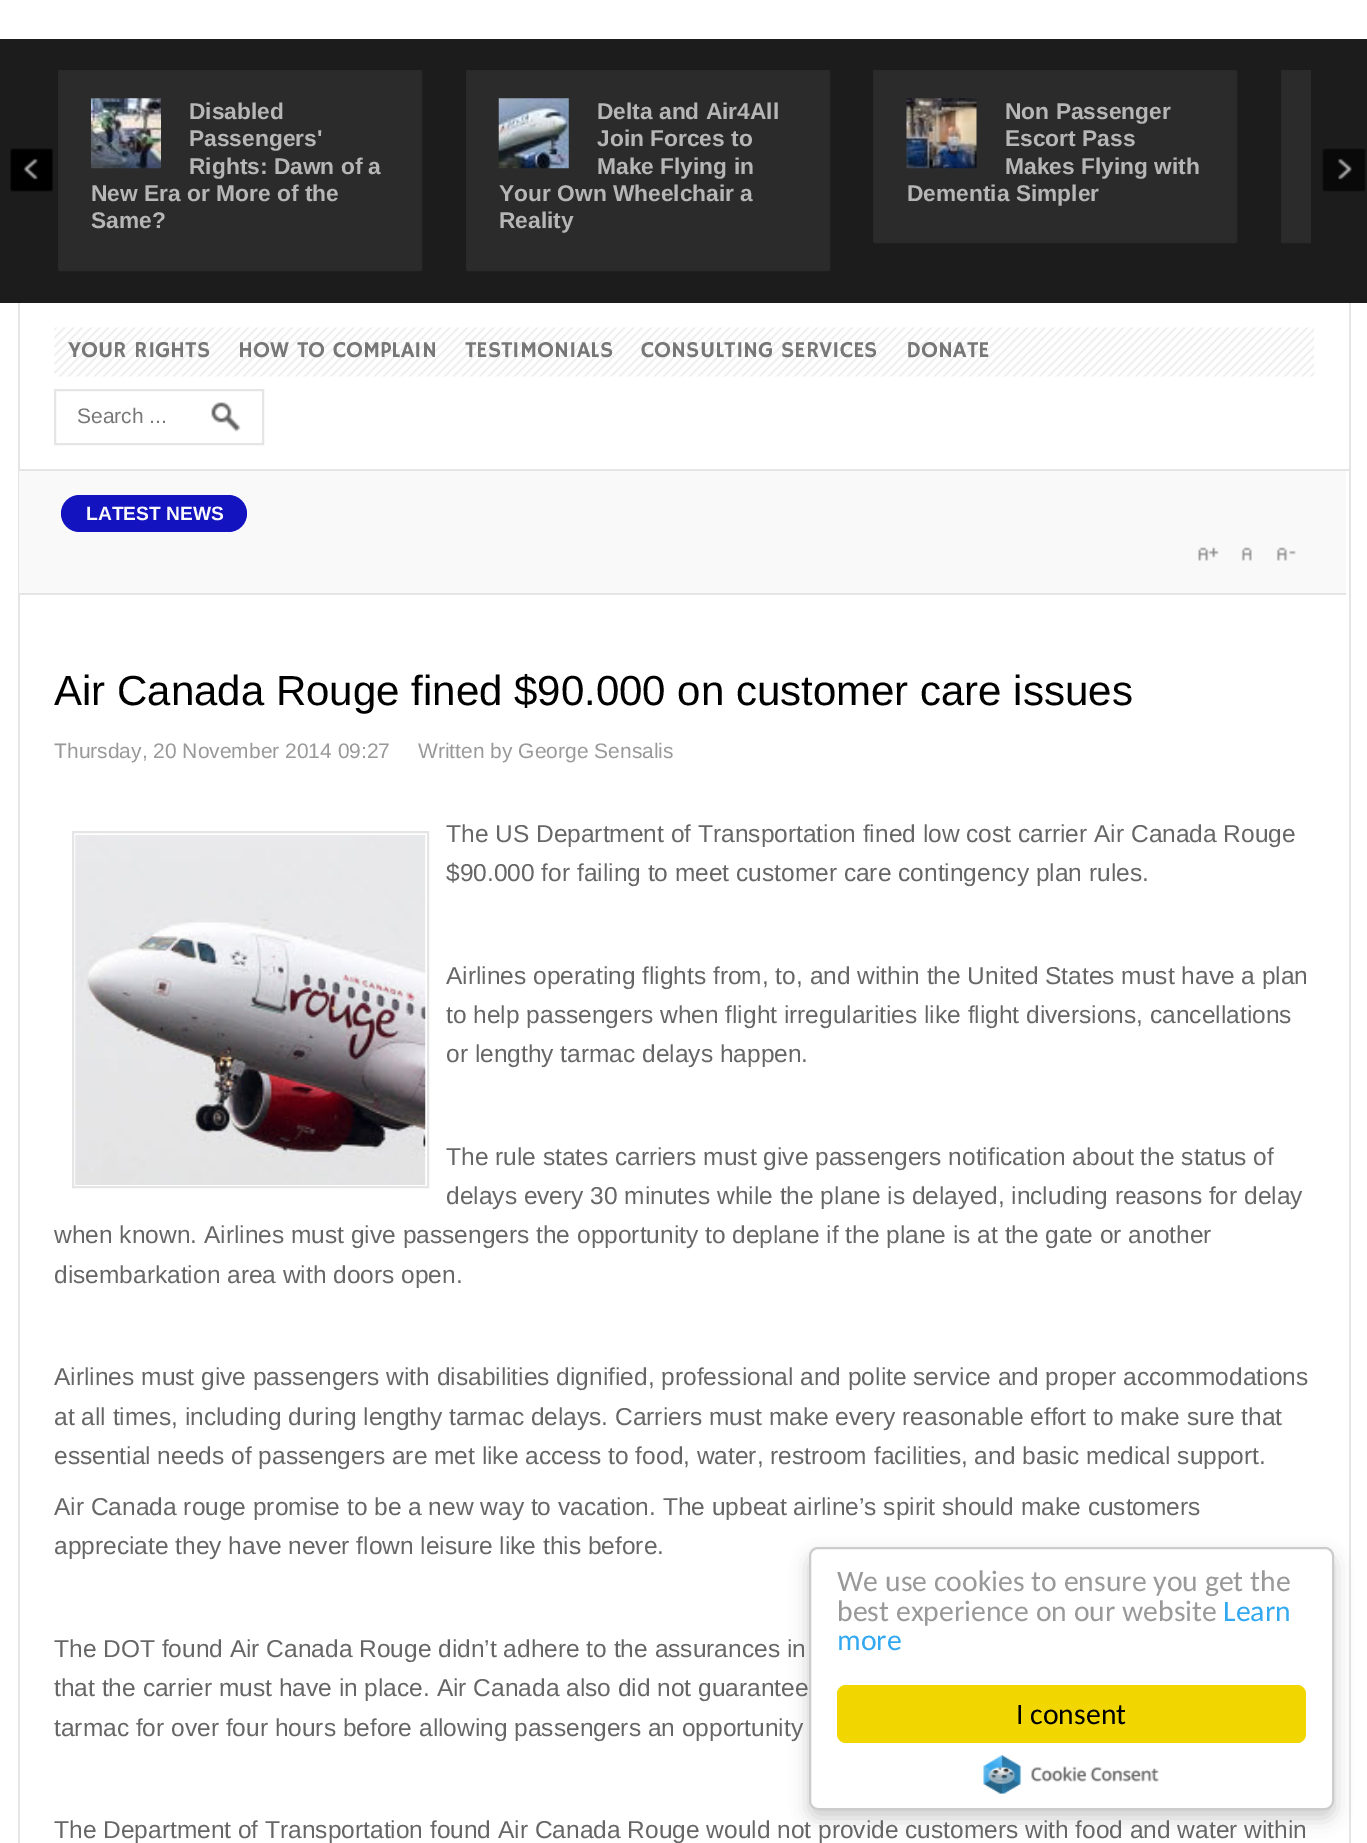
%!PS
<< /PageSize [1367 1843] /PageUsesTransparency true >> setpagedevice
/rgb { 3 { 255 div 3 1 roll } repeat setrgbcolor } def
/font { [ exch dup neg 0 0 3 -1 roll 0 0 ] selectfont } def
/alpha { dup .setfillconstantalpha .setstrokeconstantalpha } def
/roundrect { 5 dict begin { /r /h /w /y /x } { exch def } forall
  x r add y moveto x w add y 2 copy h add r arct x w add y h add x 1 index r arct
  x y h add x y r arct x y 2 copy exch w add exch r arct closepath end } def
/shadow { 12 dict begin { /a /b /q /h /w /y /x } { exch def } forall gsave /was 0 def
  9 -2 -9 { dup b mul 4 div /e exch def 1 sub .425 mul 2.718 exch exp 1 add a .99 .min exch div /now exch def
    1 1 now sub 1 was sub div sub alpha /was now def
    w h .min e 2 mul add 0 gt { x e sub y e sub w e 2 mul add h e 2 mul add
      q e add b .6 mul add w h .min 2 div e add .min 0 .max roundrect fill } if } for grestore end } def
/picture { 5 dict begin { /h /w /y /x /name } { exch def } forall
  gsave x y translate w h scale
  w h 8 [w 0 0 h 0 0] name (r) file false 3 colorimage grestore end } def
0 .pushpdf14devicefilter
0 1843 translate 1 -1 scale
4 setmiterlimit
255 255 255 rgb
0 0 1367 1843 rectfill
28 28 28 rgb
0 39 1367 264 rectfill
(img/1.rgb) 10 148 43 44 picture
43 43 43 rgb
59 71 362 199 1 roundrect gsave fill grestore
42 42 42 rgb
2 setlinewidth
stroke
(img/2.rgb) 91 98 70 71 picture
43 43 43 rgb
467 71 362 199 1 roundrect gsave fill grestore
42 42 42 rgb
stroke
(img/3.rgb) 498 98 71 71 picture
43 43 43 rgb
874 71 362 171 1 roundrect gsave fill grestore
42 42 42 rgb
stroke
(img/4.rgb) 906 98 71 71 picture
43 43 43 rgb
1283 70 moveto 1311 70 lineto 1311 243 lineto 1283 243 lineto 1282 243 1281 242 1281 241 curveto 1281 72 lineto 1281 71 1282 70 1283 70 curveto closepath fill
gsave
58 70 1253 201 rectclip
42 42 42 rgb
1282 71 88 171 1 roundrect stroke
grestore
(img/5.rgb) 1322 148 44 44 picture
[
  [1349 303 2 1540 229 229 229]
  [18 469 1333 2 229 229 229]
  [18 303 2 1540 229 229 229]
] { aload pop rgb rectfill } forall
(img/6.rgb) 54 327 1261 50 picture
(img/7.rgb) 211 402 30 30 picture
55 390 208 54 rectstroke
249 249 249 rgb
19 471 1327 122 rectfill
229 229 229 rgb
19 593 1327 2 rectfill
19 19 191 rgb
61 495 186 37 18.5 roundrect fill
(img/8.rgb) 1198 547 21 14 picture
(img/9.rgb) 1241 547 11 14 picture
(img/10.rgb) 1276 547 20 14 picture
229 229 229 rgb
73 832 355 355 rectstroke
(img/11.rgb) 75 835 351 350 picture
0 0 0 rgb
809 1556 525 262 9 9 0.2 shadow
255 255 255 rgb
810 1548 523 261 8 roundrect gsave fill grestore
204 204 204 rgb
stroke
241 214 0 rgb
837 1685 469 58 9 roundrect fill
(img/12.rgb) 983 1755 176 39 picture
/LiberationSans-Bold 22.75 font
182 182 182 rgb
[
  [(Disabled) 189 119]
  [(Passengers') 189 146]
  [(Rights: Dawn of a) 189 174]
  [(New Era or More of the) 91 201]
  [(Same?) 91 228]
  [(Delta and Air4All) 597 119]
  [(Join Forces to) 597 146]
  [(Make Flying in) 597 174]
  [(Your Own Wheelchair a) 499 201]
  [(Reality) 499 228]
  [(Non Passenger) 1005 119]
  [(Escort Pass) 1005 146]
  [(Makes Flying with) 1005 174]
  [(Dementia Simpler) 907 201]
] { aload pop moveto show } forall
/HammersmithOne-Regular 22.75 font
119 119 119 rgb
[
  [(YOUR RIGHTS) 68 357]
  [(HOW TO COMPLAIN) 238 357]
  [(TESTIMONIALS) 465 357]
  [(CONSULTING SERVICES) 641 357]
  [(DONATE) 906 357]
] { aload pop moveto show } forall
/LiberationSans-Regular 21 font
77 423 moveto (Search ...) show
/LiberationSans-Bold 19.25 font
250 249 252 rgb
86 520 moveto (LATEST NEWS) show
/LiberationSans-Regular 42 font
0 0 0 rgb
54 705 moveto (Air Canada Rouge fined $90.000 on customer care issues) show
/LiberationSans-Regular 21 font
153 153 153 rgb
54 758 moveto (Thursday, 20 November 2014 09:27) show
418 758 moveto (Written by George Sensalis) show
/LiberationSans-Regular 24.5 font
102 102 102 rgb
[
  [(The US Department of Transportation fined low cost carrier Air Canada Rouge) 446 842]
  [($90.000 for failing to meet customer care contingency plan rules.) 446 881]
  [(Airlines operating flights from, to, and within the United States must have a plan) 446 984]
  [(to help passengers when flight irregularities like flight diversions, cancellations) 446 1023]
  [(or lengthy tarmac delays happen.) 446 1062]
  [(The rule states carriers must give passengers notification about the status of) 446 1165]
  [(delays every 30 minutes while the plane is delayed, including reasons for delay) 446 1204]
  [(when known. Airlines must give passengers the opportunity to deplane if the plane is at the gate or another) 54 1243]
  [(disembarkation area with doors open.) 54 1283]
  [(Airlines must give passengers with disabilities dignified, professional and polite service and proper accommodations) 54 1385]
  [(at all times, including during lengthy tarmac delays. Carriers must make every reasonable effort to make sure that) 54 1425]
  [(essential needs of passengers are met like access to food, water, restroom facilities, and basic medical support.) 54 1464]
  [(Air Canada rouge promise to be a new way to vacation. The upbeat airline’s spirit should make customers) 54 1515]
  [(appreciate they have never flown leisure like this before.) 54 1554]
  [(The DOT found Air Canada Rouge didn’t adhere to the assurances in) 54 1657]
  [(that the carrier must have in place. Air Canada also did not guarantee) 54 1696]
  [(tarmac for over four hours before allowing passengers an opportunity) 54 1736]
  [(The Department of Transportation found Air Canada Rouge would not provide customers with food and water within) 54 1838]
] { aload pop moveto show } forall
/Carlito-Regular 29.75 font
153 153 153 rgb
837 1591 moveto (We use cookies to ensure you get the) show
837 1621 moveto (best experience on our website) show
49 168 240 rgb
1223 1621 moveto (Learn) show
837 1650 moveto (more) show
0 0 0 rgb
1016 1724 moveto (I consent) show
.poppdf14devicefilter showpage
